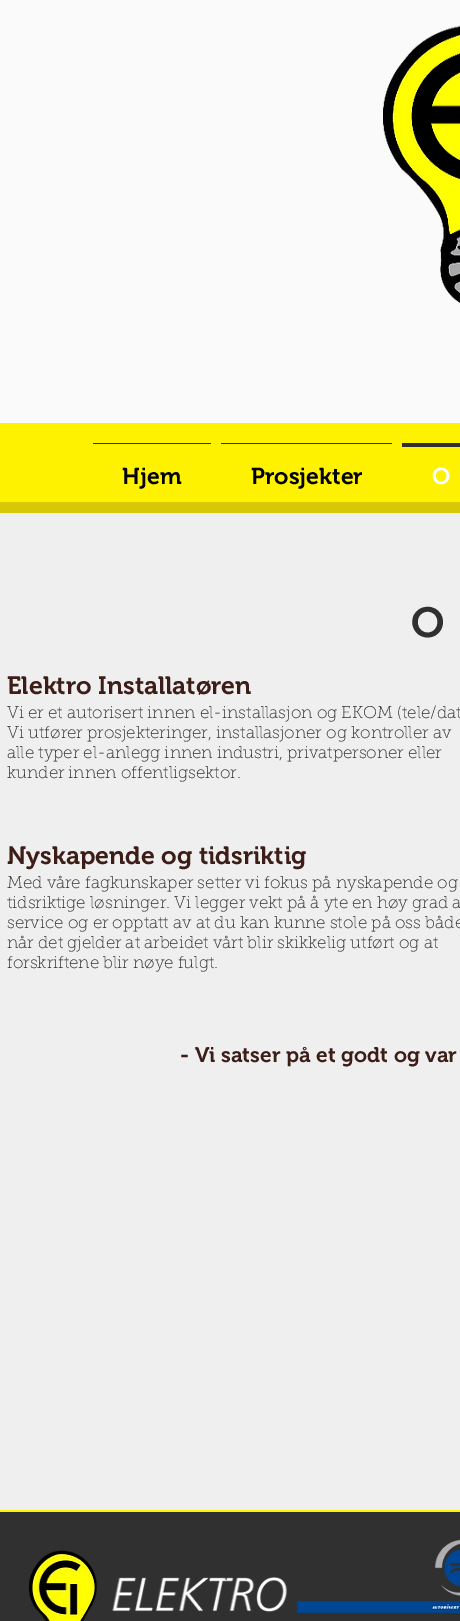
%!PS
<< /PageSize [460 1621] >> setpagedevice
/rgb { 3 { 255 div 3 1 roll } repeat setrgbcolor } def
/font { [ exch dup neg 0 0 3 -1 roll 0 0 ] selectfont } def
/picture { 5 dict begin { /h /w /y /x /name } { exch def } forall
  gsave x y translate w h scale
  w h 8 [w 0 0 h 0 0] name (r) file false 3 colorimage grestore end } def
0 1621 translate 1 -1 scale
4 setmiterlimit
239 239 239 rgb
0 0 460 1621 rectfill
[
  [0 423 460 79 255 242 0]
  [0 502 460 11 216 199 5]
  [0 0 460 423 250 250 250]
] { aload pop rgb rectfill } forall
(img/1.rgb) 383 25 77 278 picture
[
  [93 443 118 1 48 48 48]
  [221 443 171 1 48 48 48]
  [402 443 58 4 48 48 48]
  [0 1510 460 2 255 242 0]
  [0 1512 460 109 48 48 48]
] { aload pop rgb rectfill } forall
(img/2.rgb) 29 1540 431 81 picture
/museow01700-SemiBold 23 font
0 0 0 rgb
122 484 moveto (Hjem) show
251 484 moveto (Prosjekter) show
255 255 255 rgb
432 484 moveto (O) show
/museow01700-SemiBold 42 font
48 48 48 rgb
411 637 moveto (O) show
/museow01700-SemiBold 25 font
60 29 23 rgb
7 694 moveto (Elektro Installatøren) show
/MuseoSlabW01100-Thin 17 font
48 48 48 rgb
[
  [(Vi er et autorisert innen el-installasjon og EKOM \(tele/dat) 7 718]
  [(Vi utfører prosjekteringer, installasjoner og kontroller av) 7 738]
  [(alle typer el-anlegg innen industri, privatpersoner eller) 7 758]
  [(kunder innen offentligsektor.) 7 778]
] { aload pop moveto show } forall
/museow01700-SemiBold 25 font
60 29 23 rgb
7 864 moveto (Nyskapende og tidsriktig) show
/MuseoSlabW01100-Thin 17 font
48 48 48 rgb
[
  [(Med våre fagkunskaper setter vi fokus på nyskapende og) 7 888]
  [(tidsriktige løsninger. Vi legger vekt på å yte en høy grad a) 7 908]
  [(service og er opptatt av at du kan kunne stole på oss både) 7 928]
  [(når det gjelder at arbeidet vårt blir skikkelig utført og at) 7 948]
  [(forskriftene blir nøye fulgt.) 7 968]
] { aload pop moveto show } forall
/museow01700-SemiBold 21 font
60 29 23 rgb
180 1062 moveto (- Vi satser på et godt og var) show
showpage
